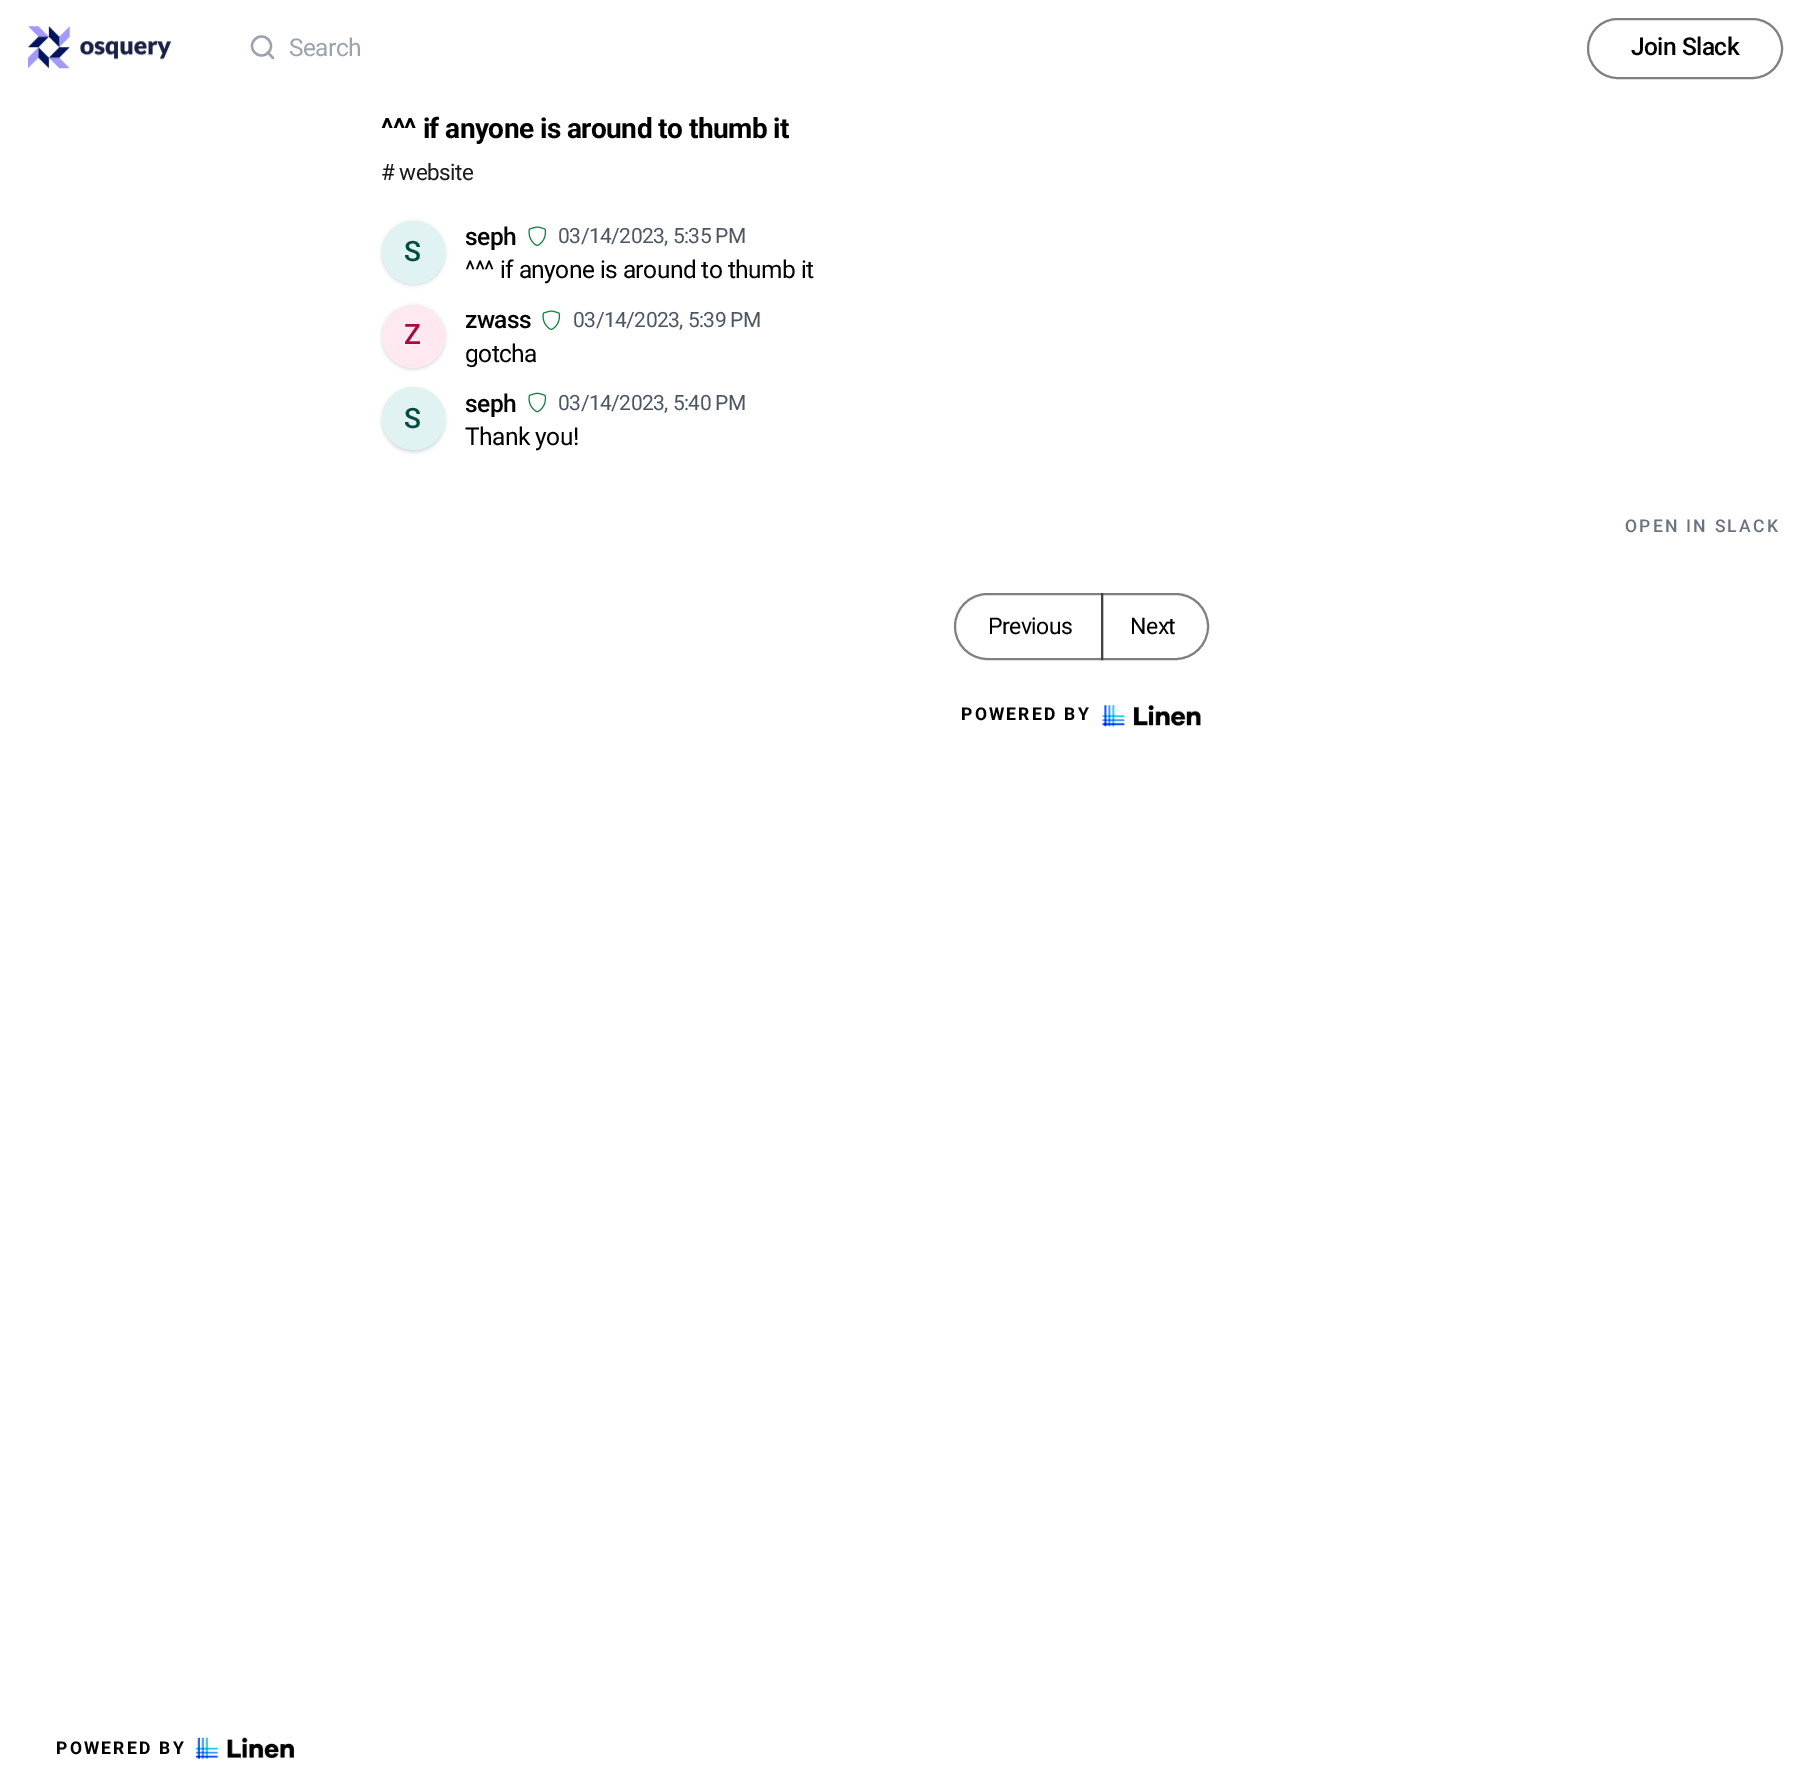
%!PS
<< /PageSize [1810 1775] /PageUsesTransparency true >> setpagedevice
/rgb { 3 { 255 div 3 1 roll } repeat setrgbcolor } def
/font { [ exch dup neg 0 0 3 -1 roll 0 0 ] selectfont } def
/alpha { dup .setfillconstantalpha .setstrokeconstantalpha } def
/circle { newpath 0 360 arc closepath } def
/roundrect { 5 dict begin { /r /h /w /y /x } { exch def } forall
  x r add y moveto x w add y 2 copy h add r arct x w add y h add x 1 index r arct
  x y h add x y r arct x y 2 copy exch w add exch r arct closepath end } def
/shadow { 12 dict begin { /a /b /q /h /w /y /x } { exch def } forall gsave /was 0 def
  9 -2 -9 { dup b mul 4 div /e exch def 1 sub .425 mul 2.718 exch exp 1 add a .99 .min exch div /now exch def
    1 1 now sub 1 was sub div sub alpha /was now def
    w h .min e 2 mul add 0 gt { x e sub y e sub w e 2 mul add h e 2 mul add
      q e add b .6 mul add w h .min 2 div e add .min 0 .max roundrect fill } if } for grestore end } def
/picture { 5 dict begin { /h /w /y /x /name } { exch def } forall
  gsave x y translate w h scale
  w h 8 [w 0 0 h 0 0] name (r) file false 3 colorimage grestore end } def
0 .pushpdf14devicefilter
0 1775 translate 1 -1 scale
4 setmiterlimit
255 255 255 rgb
0 0 1810 1775 rectfill
(img/1.rgb) 28 26 143 43 picture
156 163 175 rgb
2.3 setlinewidth
261.5 46 9.5 circle stroke
1 setlinecap
1 setlinejoin
273 58 moveto 268 52.5 lineto stroke
128 128 128 rgb
2 setlinewidth
0 setlinecap
0 setlinejoin
1588 19 194 59 29.5 roundrect stroke
209 213 219 rgb
382 222 63 63 31.5 2 1 shadow
224 242 241 rgb
413.5 252.5 31.5 circle fill
(img/2.rgb) 528 226 19 21 picture
209 213 219 rgb
382 306 63 63 31.5 2 1 shadow
255 232 240 rgb
413.5 336.5 31.5 circle fill
(img/2.rgb) 542 310 19 21 picture
209 213 219 rgb
382 389 63 63 31.5 2 1 shadow
224 242 241 rgb
413.5 418.5 31.5 circle fill
(img/3.rgb) 528 392 19 21 picture
128 128 128 rgb
987.5 594 moveto 1102 594 lineto 1102 659 lineto 987.5 659 lineto 969.5 659 955 644.5 955 626.5 curveto 955 608.5 969.5 594 987.5 594 curveto closepath stroke
0.5 alpha
0 0 0 rgb
1102 594 moveto 1175.5 594 lineto 1193.5 594 1208 608.5 1208 626.5 curveto 1208 644.5 1193.5 659 1175.5 659 curveto 1102 659 lineto closepath stroke
1 alpha
(img/4.rgb) 1102 705 99 22 picture
(img/5.rgb) 196 1737 98 22 picture
/Roboto-Regular 24.5 font
156 163 175 rgb
289 56 moveto -0.55 0 (Search) ashow
/Roboto-Medium 24.5 font
0 0 0 rgb
1631 55 moveto -0.55 0 (Join Slack) ashow
/Roboto-Bold 28 font
381 138 moveto -0.55 0 (^^^ if anyone is around to thumb it) ashow
/Roboto-Regular 22.5 font
26 26 26 rgb
381 180 moveto -0.55 0 (# website) ashow
/Roboto-Medium 28 font
0 77 64 rgb
404 261 moveto -0.55 0 (S) ashow
/Roboto-Medium 24.5 font
0 0 0 rgb
465 245 moveto -0.55 0 (seph) ashow
/Roboto-Regular 21 font
75 85 99 rgb
558 243 moveto -0.55 0 (03/14/2023, 5:35 PM) ashow
/Roboto-Regular 24.5 font
0 0 0 rgb
465 278 moveto -0.55 0 (^^^ if anyone is around to thumb it) ashow
/Roboto-Medium 28 font
162 13 65 rgb
404 344 moveto -0.55 0 (Z) ashow
/Roboto-Medium 24.5 font
0 0 0 rgb
465 328 moveto -0.55 0 (zwass) ashow
/Roboto-Regular 21 font
75 85 99 rgb
573 327 moveto -0.55 0 (03/14/2023, 5:39 PM) ashow
/Roboto-Regular 24.5 font
0 0 0 rgb
465 362 moveto -0.55 0 (gotcha) ashow
/Roboto-Medium 28 font
0 77 64 rgb
404 428 moveto -0.55 0 (S) ashow
/Roboto-Medium 24.5 font
0 0 0 rgb
465 412 moveto -0.55 0 (seph) ashow
/Roboto-Regular 21 font
75 85 99 rgb
558 410 moveto -0.55 0 (03/14/2023, 5:40 PM) ashow
/Roboto-Regular 24.5 font
0 0 0 rgb
465 445 moveto -0.55 0 (Thank you!) ashow
/Roboto-Medium 17.5 font
107 114 128 rgb
1625 532 moveto 2.25 0 (OPEN IN SLACK) ashow
/Roboto-Regular 23 font
0 0 0 rgb
988 634 moveto -0.55 0 (Previous) ashow
1130 634 moveto -0.55 0 (Next) ashow
/Roboto-Bold 17.5 font
961 720 moveto 2.25 0 (POWERED BY) ashow
56 1754 moveto 2.25 0 (POWERED BY) ashow
.poppdf14devicefilter showpage
